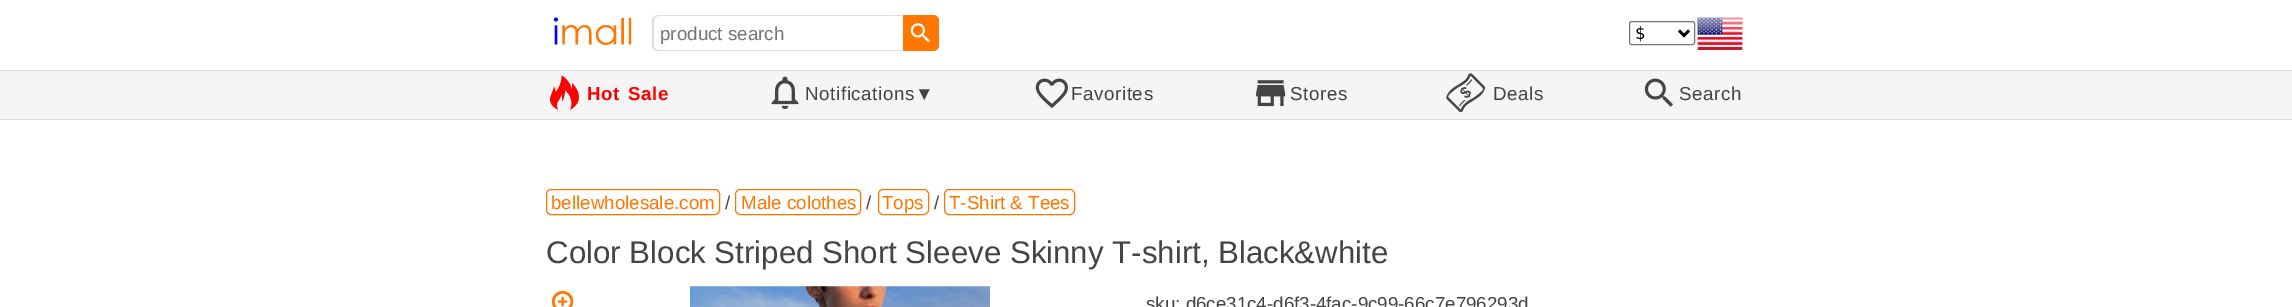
%!PS
<< /PageSize [2292 307] >> setpagedevice
/rgb { 3 { 255 div 3 1 roll } repeat setrgbcolor } def
/font { [ exch dup neg 0 0 3 -1 roll 0 0 ] selectfont } def
/roundrect { 5 dict begin { /r /h /w /y /x } { exch def } forall
  x r add y moveto x w add y 2 copy h add r arct x w add y h add x 1 index r arct
  x y h add x y r arct x y 2 copy exch w add exch r arct closepath end } def
/picture { 5 dict begin { /h /w /y /x /name } { exch def } forall
  gsave x y translate w h scale
  w h 8 [w 0 0 h 0 0] name (r) file false 3 colorimage grestore end } def
0 307 translate 1 -1 scale
4 setmiterlimit
255 255 255 rgb
0 0 2292 307 rectfill
(img/1.rgb) 553 17 79 28 picture
221 221 221 rgb
659 15 moveto 902 15 lineto 902 51 lineto 659 51 lineto 655 51 652 48 652 45 curveto 652 21 lineto 652 18 655 15 659 15 curveto closepath 659 16 moveto 902 16 lineto 902 50 lineto 659 50 lineto 656 50 654 48 654 45 curveto 654 21 lineto 654 18 656 16 659 16 curveto closepath eofill
255 119 0 rgb
903 15 moveto 933 15 lineto 936.5 15 939 17.5 939 21 curveto 939 45 lineto 939 48.5 936.5 51 933 51 curveto 903 51 lineto closepath fill
(img/2.rgb) 910 23 20 20 picture
118 118 118 rgb
1629.5 21.5 65 23 2 roundrect stroke
0 0 0 rgb
2.5 setlinewidth
1679 30.5 moveto 1684 35.5 lineto 1689 30.5 lineto stroke
(img/3.rgb) 1697 17 46 33 picture
[
  [0 71 2292 48 245 245 245]
  [0 70 2292 1 221 221 221]
  [0 119 2292 1 221 221 221]
] { aload pop rgb rectfill } forall
(img/4.rgb) 550 75 29 35 picture
(img/5.rgb) 771 76 28 34 picture
(img/6.rgb) 1035 78 33 31 picture
(img/7.rgb) 1256 80 30 27 picture
(img/8.rgb) 1446 73 40 40 picture
(img/9.rgb) 1644 78 29 29 picture
255 119 0 rgb
1 setlinewidth
546.5 189.5 173 25 4.5 roundrect stroke
735.5 189.5 125 25 4.5 roundrect stroke
878.5 189.5 50 25 4.5 roundrect stroke
944.5 189.5 130 25 4.5 roundrect stroke
(img/10.rgb) 551 290 23 17 picture
(img/11.rgb) 690 286 300 21 picture
/LiberationSans-Regular 18.75 font
117 117 117 rgb
660 40 moveto (product search) show
/DejaVuSansMono-Regular 17 font
0 0 0 rgb
1635 39 moveto ($) show
/LiberationSans-Bold 18.75 font
255 0 0 rgb
587 100 moveto 2 0 32 0.6 0 (Hot Sale) awidthshow
/LiberationSans-Regular 18.75 font
68 68 68 rgb
805 100 moveto 0.6 0 (Notifications▼) ashow
1071 100 moveto 0.6 0 (Favorites) ashow
1290 100 moveto 0.6 0 (Stores) ashow
1493 100 moveto 0.6 0 (Deals) ashow
1679 100 moveto 0.6 0 (Search) ashow
255 119 0 rgb
551 209 moveto (bellewholesale.com) show
68 68 68 rgb
725 209 moveto (/) show
255 119 0 rgb
741 209 moveto (Male colothes) show
68 68 68 rgb
866 209 moveto (/) show
255 119 0 rgb
882 209 moveto (Tops) show
68 68 68 rgb
934 209 moveto (/) show
255 119 0 rgb
949 209 moveto (T-Shirt & Tees) show
/LiberationSans-Regular 31.25 font
68 68 68 rgb
546 263 moveto (Color Block Striped Short Sleeve Skinny T-shirt, Black&white) show
/LiberationSans-Regular 18.75 font
1146 310 moveto (sku: d6ce31c4-d6f3-4fac-9c99-66c7e796293d) show
showpage
